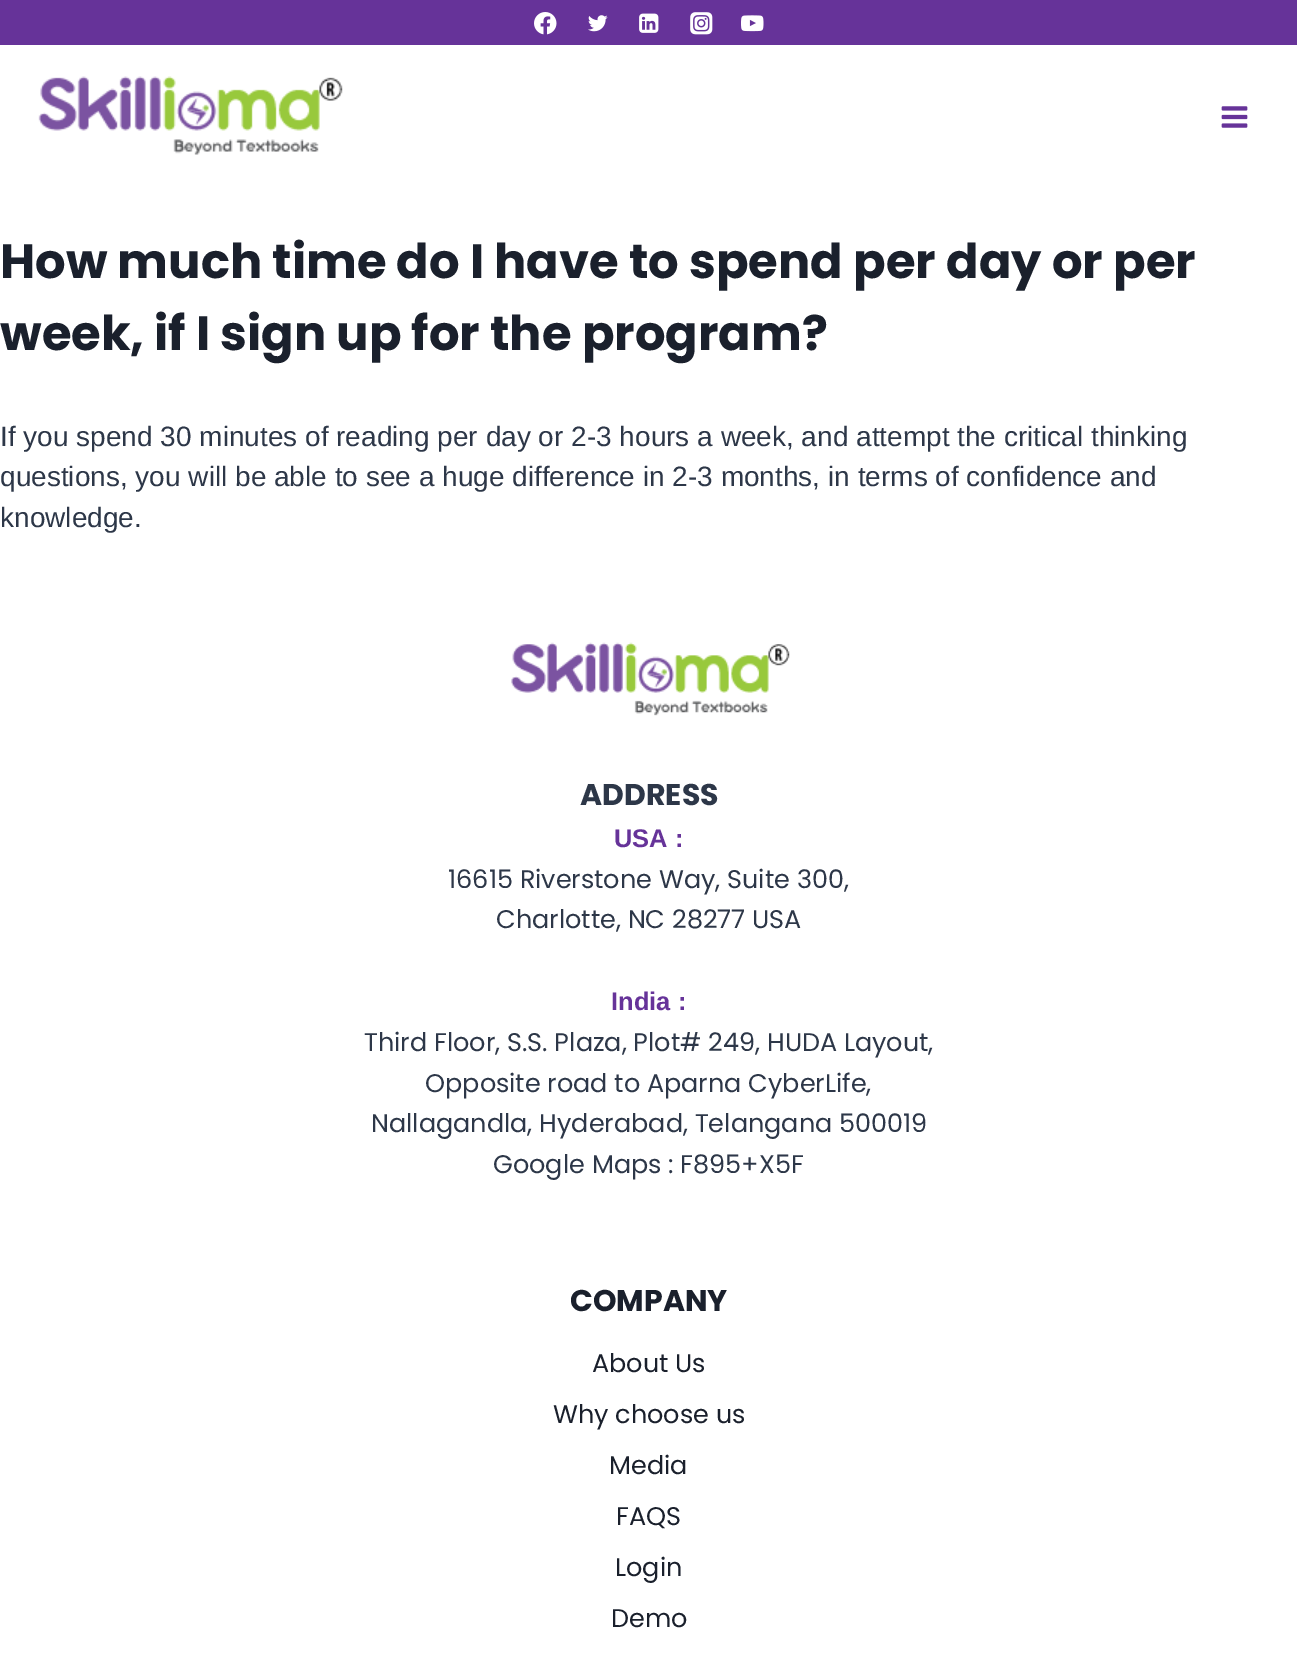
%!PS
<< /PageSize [1297 1664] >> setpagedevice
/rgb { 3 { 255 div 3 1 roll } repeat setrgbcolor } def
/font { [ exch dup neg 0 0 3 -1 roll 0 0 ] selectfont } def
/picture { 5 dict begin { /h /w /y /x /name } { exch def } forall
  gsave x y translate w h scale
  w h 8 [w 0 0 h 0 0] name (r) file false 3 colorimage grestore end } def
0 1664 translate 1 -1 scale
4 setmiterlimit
255 255 255 rgb
0 0 1297 1664 rectfill
102 51 153 rgb
0 0 1297 45 rectfill
(img/1.rgb) 534 12 23 23 picture
(img/2.rgb) 588 15 20 17 picture
(img/3.rgb) 639 13 20 20 picture
(img/4.rgb) 690 12 23 23 picture
(img/5.rgb) 741 15 23 17 picture
(img/6.rgb) 38 76 305 79 picture
(img/7.rgb) 1221 106 27 22 picture
(img/8.rgb) 511 642 279 74 picture
/Poppins-Bold 48 font
26 32 44 rgb
0 278 moveto (How much time do I have to spend per day or per) show
0 350 moveto (week, if I sign up for the program?) show
/LiberationSans-Regular 28 font
45 55 72 rgb
[
  [(If you spend 30 minutes of reading per day or 2-3 hours a week, and attempt the critical thinking) 0 446]
  [(questions, you will be able to see a huge difference in 2-3 months, in terms of confidence and) 0 486]
  [(knowledge.) 0 527]
] { aload pop moveto show } forall
/Poppins-Bold 30 font
580 805 moveto (ADDRESS) show
/LiberationSans-Bold 25.5 font
102 51 153 rgb
614 847 moveto (USA :) show
/Poppins-Regular 25.5 font
45 55 72 rgb
448 888 moveto (16615 Riverstone Way, Suite 300,) show
496 928 moveto (Charlotte, NC 28277 USA) show
/LiberationSans-Bold 25.5 font
102 51 153 rgb
611 1010 moveto (India :) show
/Poppins-Regular 25.5 font
45 55 72 rgb
[
  [(Third Floor, S.S. Plaza, Plot# 249, HUDA Layout,) 364 1051]
  [(Opposite road to Aparna CyberLife,) 425 1092]
  [(Nallagandla, Hyderabad, Telangana 500019) 371 1132]
  [(Google Maps : F895+X5F) 493 1173]
] { aload pop moveto show } forall
/Poppins-Bold 30 font
26 32 44 rgb
570 1311 moveto (COMPANY) show
/Poppins-Regular 25.5 font
[
  [(About Us) 592 1372]
  [(Why choose us) 553 1423]
  [(Media) 609 1474]
  [(FAQS) 616 1525]
  [(Login) 615 1576]
  [(Demo) 611 1627]
] { aload pop moveto show } forall
showpage
